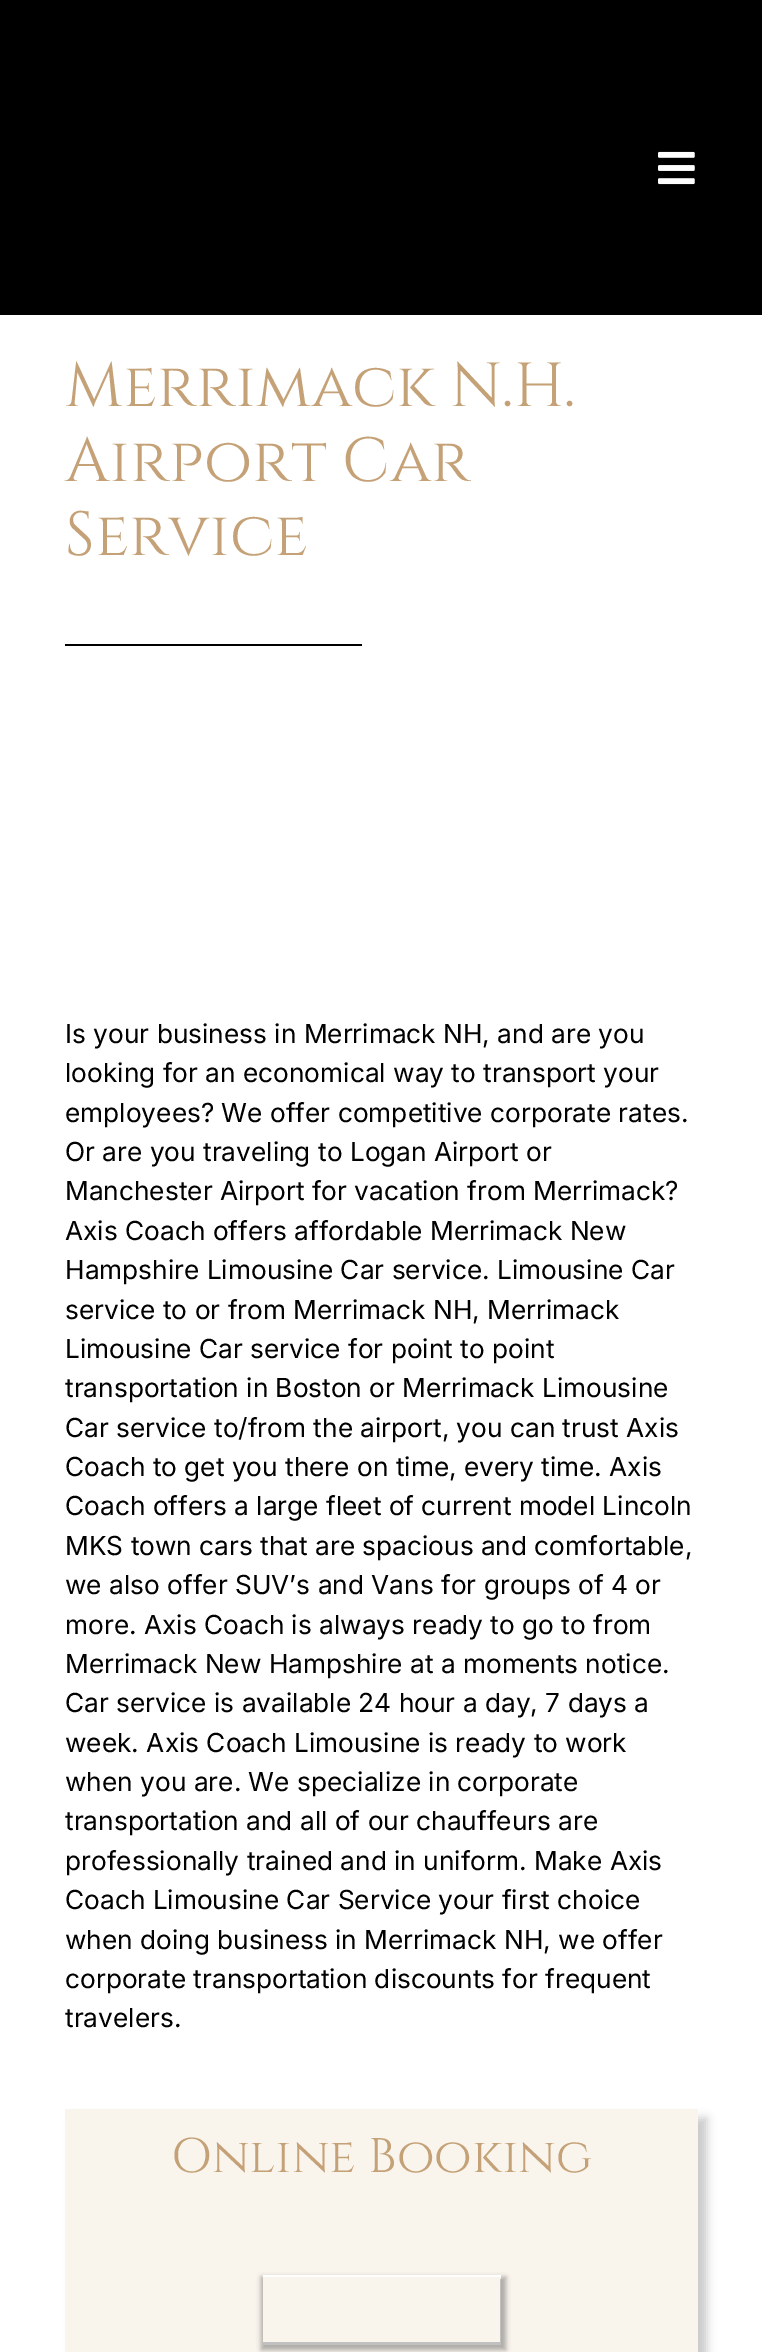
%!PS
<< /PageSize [762 2352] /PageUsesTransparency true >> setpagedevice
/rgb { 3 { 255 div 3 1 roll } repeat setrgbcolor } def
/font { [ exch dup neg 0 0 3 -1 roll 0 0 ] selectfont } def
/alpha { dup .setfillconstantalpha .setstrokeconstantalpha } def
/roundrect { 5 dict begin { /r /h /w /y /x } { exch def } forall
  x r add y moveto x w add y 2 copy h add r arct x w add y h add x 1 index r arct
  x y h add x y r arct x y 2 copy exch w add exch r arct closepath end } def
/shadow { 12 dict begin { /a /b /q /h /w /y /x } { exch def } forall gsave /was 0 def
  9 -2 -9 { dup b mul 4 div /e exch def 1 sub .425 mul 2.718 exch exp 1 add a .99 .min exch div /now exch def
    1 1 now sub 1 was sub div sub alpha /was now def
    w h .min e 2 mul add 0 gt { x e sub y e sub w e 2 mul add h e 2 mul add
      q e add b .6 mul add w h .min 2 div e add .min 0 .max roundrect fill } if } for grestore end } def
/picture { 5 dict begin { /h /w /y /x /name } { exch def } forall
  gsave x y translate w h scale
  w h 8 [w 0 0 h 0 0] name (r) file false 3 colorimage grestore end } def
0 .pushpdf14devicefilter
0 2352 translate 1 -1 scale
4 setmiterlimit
255 255 255 rgb
0 0 762 2352 rectfill
0 0 0 rgb
0 0 762 315 rectfill
(img/1.rgb) 658 151 37 34 picture
65 644 297 2 rectfill
74 2118 633 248 0 4.5 0.2 shadow
249 245 237 rgb
65 2109 633 243 rectfill
gsave
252 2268 moveto 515 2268 lineto 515 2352 lineto 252 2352 lineto closepath 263 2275 moveto 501 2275 lineto 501 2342 lineto 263 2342 lineto closepath eoclip newpath
0 0 0 rgb
261 2277 245 73 0 2.5 0.3 shadow
grestore
192 192 192 rgb
263 2342 moveto 263 2345 lineto 501 2345 lineto 501 2279 lineto 500 2279 lineto 500 2342 lineto closepath fill
255 255 255 rgb
263 2275 238 2 rectfill
/Cinzel-Regular 62.25 font
196 161 119 rgb
[
  [(Merrimack N.H.) 65 406]
  [(Airport Car) 65 481]
  [(Service) 65 555]
] { aload pop moveto show } forall
/Inter-Regular 26.25 font
0 0 0 rgb
[
  [(Is your business in Merrimack NH, and are you) 65 1043]
  [(looking for an economical way to transport your) 65 1082]
  [(employees? We offer competitive corporate rates.) 65 1122]
  [(Or are you traveling to Logan Airport or) 65 1161]
  [(Manchester Airport for vacation from Merrimack?) 65 1200]
  [(Axis Coach offers affordable Merrimack New) 65 1240]
  [(Hampshire Limousine Car service. Limousine Car) 65 1279]
  [(service to or from Merrimack NH, Merrimack) 65 1319]
  [(Limousine Car service for point to point) 65 1358]
  [(transportation in Boston or Merrimack Limousine) 65 1397]
  [(Car service to/from the airport, you can trust Axis) 65 1437]
  [(Coach to get you there on time, every time. Axis) 65 1476]
  [(Coach offers a large fleet of current model Lincoln) 65 1515]
  [(MKS town cars that are spacious and comfortable,) 65 1555]
  [(we also offer SUV’s and Vans for groups of 4 or) 65 1594]
  [(more. Axis Coach is always ready to go to from) 65 1634]
  [(Merrimack New Hampshire at a moments notice.) 65 1673]
  [(Car service is available 24 hour a day, 7 days a) 65 1712]
  [(week. Axis Coach Limousine is ready to work) 65 1752]
  [(when you are. We specialize in corporate) 65 1791]
  [(transportation and all of our chauffeurs are) 65 1830]
  [(professionally trained and in uniform. Make Axis) 65 1870]
  [(Coach Limousine Car Service your first choice) 65 1909]
  [(when doing business in Merrimack NH, we offer) 65 1949]
  [(corporate transportation discounts for frequent) 65 1988]
  [(travelers.) 65 2027]
] { aload pop moveto show } forall
/Cinzel-Regular 48.5 font
196 161 119 rgb
171 2172 moveto (Online Booking) show
.poppdf14devicefilter showpage
